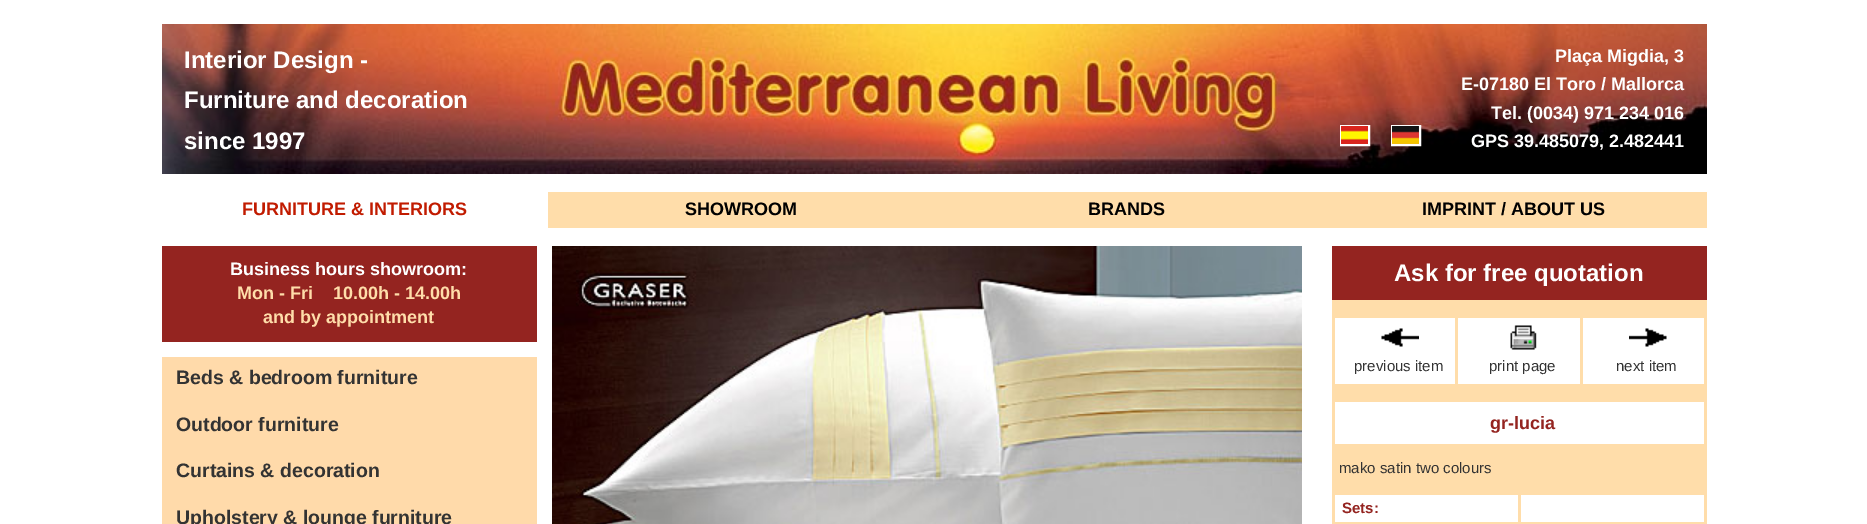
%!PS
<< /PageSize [1867 524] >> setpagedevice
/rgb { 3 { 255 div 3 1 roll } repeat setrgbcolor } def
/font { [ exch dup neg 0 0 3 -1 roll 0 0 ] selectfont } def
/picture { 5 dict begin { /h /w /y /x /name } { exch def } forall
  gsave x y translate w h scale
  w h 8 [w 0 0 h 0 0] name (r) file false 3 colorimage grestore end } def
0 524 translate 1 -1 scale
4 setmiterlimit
255 255 255 rgb
0 0 1867 524 rectfill
(img/1.rgb) 162 24 1545 150 picture
2 setlinewidth
1341 126 28 19 rectstroke
(img/2.rgb) 1341 126 27 18 picture
1392 126 28 19 rectstroke
(img/3.rgb) 1392 126 27 18 picture
[
  [548 192 1159 36 255 221 170]
  [162 357 375 167 255 218 170]
  [162 246 375 96 148 36 32]
] { aload pop rgb rectfill } forall
(img/4.rgb) 552 246 750 278 picture
[
  [1332 300 375 224 255 221 170]
  [1332 246 375 54 148 36 32]
  [1335 318 120 66 255 255 255]
] { aload pop rgb rectfill } forall
(img/5.rgb) 1381 328 38 19 picture
1458 318 122 66 rectfill
(img/6.rgb) 1510 325 27 25 picture
1583 318 121 66 rectfill
(img/7.rgb) 1629 328 38 19 picture
[
  [1335 402 369 42 255 255 255]
  [1335 495 183 27 255 255 255]
  [1521 495 183 27 255 255 255]
] { aload pop rgb rectfill } forall
/LiberationSans-Bold 24 font
[
  [(Interior Design -) 184 68]
  [(Furniture and decoration) 184 108]
  [(since 1997) 184 149]
] { aload pop moveto show } forall
/LiberationSans-Bold 18 font
[
  [(Plaça Migdia, 3) 1555 62]
  [(E-07180 El Toro / Mallorca) 1461 90]
  [(Tel. \(0034\) 971 234 016) 1491 119]
  [(GPS 39.485079, 2.482441) 1471 147]
] { aload pop moveto show } forall
193 27 0 rgb
242 215 moveto (FURNITURE & INTERIORS) show
0 0 0 rgb
[
  [(SHOWROOM) 685 215]
  [(BRANDS) 1088 215]
  [(IMPRINT / ABOUT US) 1422 215]
] { aload pop moveto show } forall
255 255 255 rgb
230 275 moveto (Business hours showroom:) show
255 221 170 rgb
237 299 moveto (Mon - Fri    10.00h - 14.00h) show
263 323 moveto (and by appointment) show
/LiberationSans-Bold 19.5 font
51 51 51 rgb
[
  [(Beds & bedroom furniture) 176 384]
  [(Outdoor furniture) 176 431]
  [(Curtains & decoration) 176 477]
  [(Upholstery & lounge furniture) 176 524]
] { aload pop moveto show } forall
/LiberationSans-Bold 24 font
255 255 255 rgb
1394 281 moveto (Ask for free quotation) show
/LiberationSans-Regular 15 font
51 51 51 rgb
[
  [(previous item) 1354 371]
  [(print page) 1489 371]
  [(next item) 1616 371]
] { aload pop moveto show } forall
/LiberationSans-Bold 18 font
148 36 32 rgb
1490 429 moveto (gr-lucia) show
/LiberationSans-Regular 15 font
51 51 51 rgb
1339 473 moveto (mako satin two colours) show
/LiberationSans-Bold 15 font
148 36 32 rgb
1342 513 moveto (Sets:) show
showpage
